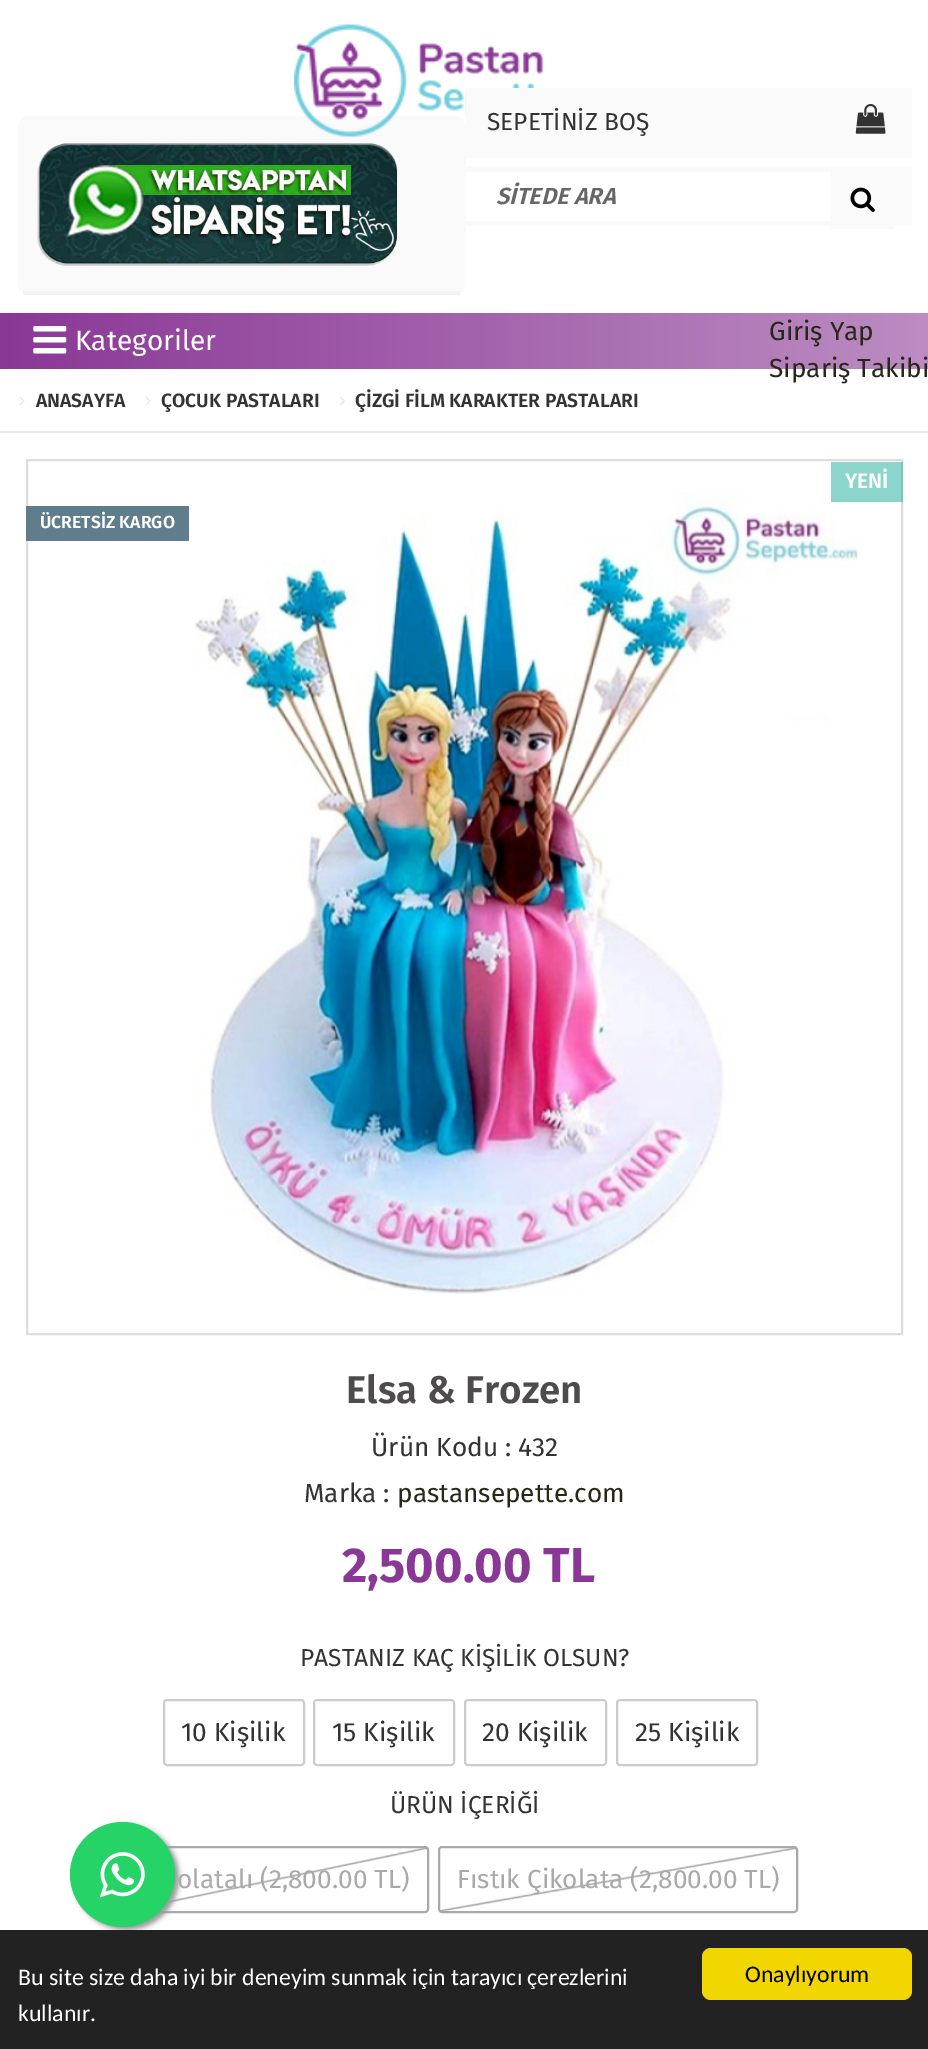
%!PS
<< /PageSize [928 2049] /PageUsesTransparency true >> setpagedevice
/rgb { 3 { 255 div 3 1 roll } repeat setrgbcolor } def
/font { [ exch dup neg 0 0 3 -1 roll 0 0 ] selectfont } def
/alpha { dup .setfillconstantalpha .setstrokeconstantalpha } def
/circle { newpath 0 360 arc closepath } def
/roundrect { 5 dict begin { /r /h /w /y /x } { exch def } forall
  x r add y moveto x w add y 2 copy h add r arct x w add y h add x 1 index r arct
  x y h add x y r arct x y 2 copy exch w add exch r arct closepath end } def
/shadow { 12 dict begin { /a /b /q /h /w /y /x } { exch def } forall gsave /was 0 def
  9 -2 -9 { dup b mul 4 div /e exch def 1 sub .425 mul 2.718 exch exp 1 add a .99 .min exch div /now exch def
    1 1 now sub 1 was sub div sub alpha /was now def
    w h .min e 2 mul add 0 gt { x e sub y e sub w e 2 mul add h e 2 mul add
      q e add b .6 mul add w h .min 2 div e add .min 0 .max roundrect fill } if } for grestore end } def
/picture { 5 dict begin { /h /w /y /x /name } { exch def } forall
  gsave x y translate w h scale
  w h 8 [w 0 0 h 0 0] name (r) file false 3 colorimage grestore end } def
0 .pushpdf14devicefilter
0 2049 translate 1 -1 scale
4 setmiterlimit
255 255 255 rgb
0 0 928 2049 rectfill
250 250 250 rgb
18 116 448 178 11 roundrect fill
(img/1.rgb) 294 24 249 113 picture
243 243 243 rgb
23 291 437 4 rectfill
(img/2.rgb) 37 143 361 123 picture
250 250 250 rgb
466 88 446 70 rectfill
(img/3.rgb) 855 104 31 30 picture
[
  [466 166 446 60 250 250 250]
  [466 172 365 49 255 255 255]
  [831 226 63 3 250 250 250]
] { aload pop rgb rectfill } forall
(img/4.rgb) 850 187 25 25 picture
gsave 0 313 moveto 928 313 lineto 928 369 lineto 0 369 lineto closepath clip newpath
<< /ShadingType 2 /ColorSpace /DeviceRGB /Coords [0 341 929 341] /Extend [true true] /Function << /FunctionType 2 /Domain [0 1] /C0 [0.541 0.22 0.588] /C1 [0.737 0.549 0.761] /N 1 >> >> shfill grestore
(img/5.rgb) 33 326 34 28 picture
235 235 235 rgb
0 431 928 2 rectfill
(img/6.rgb) 19 396 6 10 picture
(img/6.rgb) 145 396 6 10 picture
(img/7.rgb) 340 396 5 10 picture
221 221 221 rgb
2 setlinewidth
27 460 875 874 rectstroke
(img/8.rgb) 194 492 667 802 picture
0.5 alpha
24 171 155 rgb
831 462 72 40 rectfill
1 alpha
96 125 139 rgb
26 506 163 35 rectfill
204 204 204 rgb
164 1700 140 65 3 roundrect stroke
314 1700 140 65 3 roundrect stroke
465 1700 141 65 3 roundrect stroke
617 1700 140 65 3 roundrect stroke
(img/9.rgb) 166 1848 261 56 picture
169 169 169 rgb
124 1847 304 65 3 roundrect stroke
(img/10.rgb) 440 1848 356 63 picture
439 1847 358 65 3 roundrect stroke
153 153 153 rgb
74 1825 105 105 52.5 2.5 1 shadow
37 211 102 rgb
122.5 1874.5 52.5 circle fill
(img/11.rgb) 99 1852 46 46 picture
34 34 34 rgb
0 1930 928 119 rectfill
241 214 0 rgb
702 1948 210 52 9 roundrect fill
/FiraSans-Regular 24.5 font
51 51 51 rgb
487 130 moveto (SEPETİNİZ BOŞ) show
/FiraSans-SemiBoldItalic 23.25 font
102 102 102 rgb
496 204 moveto (SİTEDE ARA) show
/FiraSans-Regular 28 font
255 255 255 rgb
75 350 moveto (Kategoriler) show
/FiraSans-Regular 26.25 font
39 40 24 rgb
769 340 moveto (Giriş Yap) show
769 377 moveto (Sipariş Takibi) show
/FiraSans-SemiBold 19.25 font
51 51 51 rgb
[
  [(ANASAYFA) 36 407]
  [(ÇOCUK PASTALARI) 161 407]
  [(ÇİZGİ FİLM KARAKTER PASTALARI) 355 407]
] { aload pop moveto show } forall
/FiraSans-SemiBold 21 font
255 255 255 rgb
845 488 moveto (YENİ) show
/FiraSans-SemiBold 17.5 font
40 528 moveto (ÜCRETSİZ KARGO) show
/FiraSans-SemiBold 38.5 font
77 75 76 rgb
346 1403 moveto (Elsa & Frozen) show
/FiraSans-Regular 26.25 font
51 51 51 rgb
371 1456 moveto (Ürün Kodu : 432) show
304 1502 moveto (Marka :) show
39 40 24 rgb
397 1502 moveto (pastansepette.com) show
/FiraSans-Bold 49 font
138 56 150 rgb
342 1582 moveto (2,500.00 TL) show
/FiraSans-Regular 24.5 font
51 51 51 rgb
300 1666 moveto (PASTANIZ KAÇ KİŞİLİK OLSUN?) show
/FiraSans-Regular 26.25 font
[
  [(10 Kişilik) 181 1741]
  [(15 Kişilik) 332 1741]
  [(20 Kişilik) 482 1741]
  [(25 Kişilik) 635 1741]
] { aload pop moveto show } forall
/FiraSans-Regular 24.5 font
390 1813 moveto (ÜRÜN İÇERİĞİ) show
/FiraSans-Regular 26.25 font
169 169 169 rgb
177 1888 moveto (olatalı \(2,800.00 TL\)) show
457 1888 moveto (Fıstık Çikolata \(2,800.00 TL\)) show
/Carlito-Regular 23.8 font
255 255 255 rgb
18 1985 moveto (Bu site size daha iyi bir deneyim sunmak için tarayıcı çerezlerini) show
18 2021 moveto (kullanır.) show
0 0 0 rgb
745 1982 moveto (Onaylıyorum) show
.poppdf14devicefilter showpage
